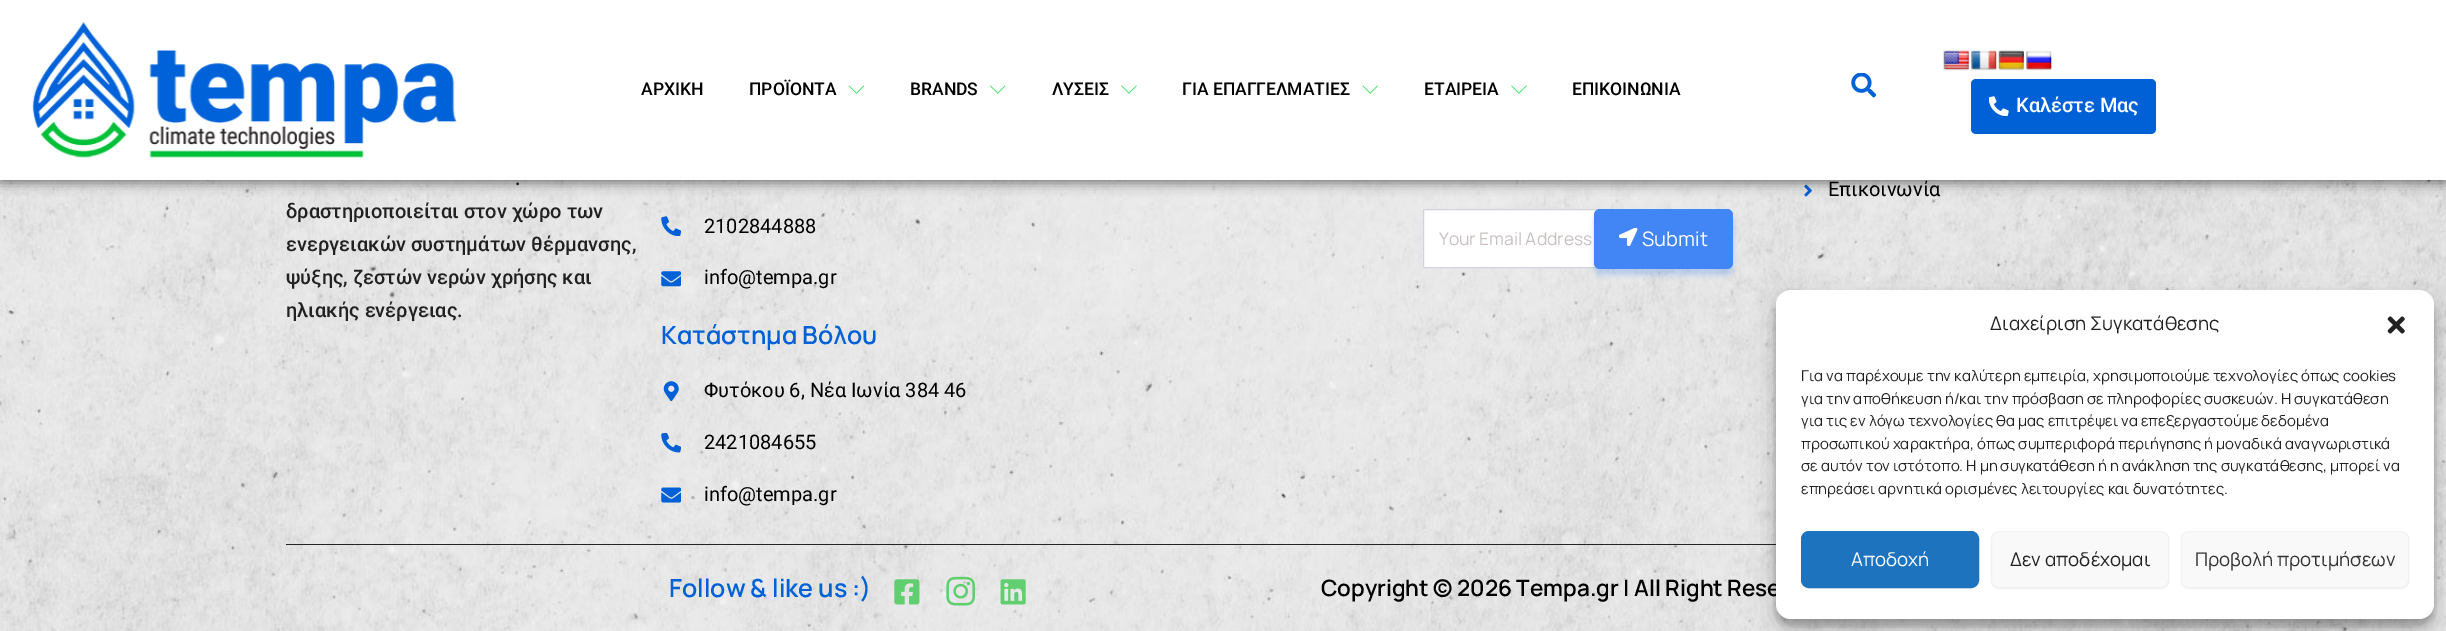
%!PS
<< /PageSize [2446 631] /PageUsesTransparency true >> setpagedevice
/rgb { 3 { 255 div 3 1 roll } repeat setrgbcolor } def
/font { [ exch dup neg 0 0 3 -1 roll 0 0 ] selectfont } def
/alpha { dup .setfillconstantalpha .setstrokeconstantalpha } def
/roundrect { 5 dict begin { /r /h /w /y /x } { exch def } forall
  x r add y moveto x w add y 2 copy h add r arct x w add y h add x 1 index r arct
  x y h add x y r arct x y 2 copy exch w add exch r arct closepath end } def
/shadow { 12 dict begin { /a /b /q /h /w /y /x } { exch def } forall gsave /was 0 def
  9 -2 -9 { dup b mul 4 div /e exch def 1 sub .425 mul 2.718 exch exp 1 add a .99 .min exch div /now exch def
    1 1 now sub 1 was sub div sub alpha /was now def
    w h .min e 2 mul add 0 gt { x e sub y e sub w e 2 mul add h e 2 mul add
      q e add b .6 mul add w h .min 2 div e add .min 0 .max roundrect fill } if } for grestore end } def
/picture { 5 dict begin { /h /w /y /x /name } { exch def } forall
  gsave x y translate w h scale
  w h 8 [w 0 0 h 0 0] name (r) file false 3 colorimage grestore end } def
0 .pushpdf14devicefilter
0 631 translate 1 -1 scale
4 setmiterlimit
255 255 255 rgb
0 0 2446 631 rectfill
(img/12.rgb) 0 180 2446 451 picture
(img/19.rgb) 1804 184 8 13 picture
0 0 0 rgb
0 3 2446 180 0 6 0.5 shadow
255 255 255 rgb
0 0 2446 180 rectfill
(img/1.rgb) 32 21 425 137 picture
(img/2.rgb) 848 85 17 9 picture
(img/3.rgb) 990 85 16 9 picture
(img/4.rgb) 1121 85 16 9 picture
(img/5.rgb) 1362 85 16 9 picture
(img/4.rgb) 1511 85 16 9 picture
(img/6.rgb) 1851 73 25 25 picture
(img/7.rgb) 1943 50 26 21 picture
(img/8.rgb) 1971 50 26 21 picture
(img/9.rgb) 1998 50 26 21 picture
(img/10.rgb) 2026 50 26 21 picture
0 97 215 rgb
1971 79 185 55 5 roundrect fill
(img/11.rgb) 1989 96 20 20 picture
(img/13.rgb) 661 216 20 20 picture
(img/14.rgb) 661 271 20 16 picture
(img/15.rgb) 663 381 16 20 picture
(img/16.rgb) 661 433 20 20 picture
(img/17.rgb) 661 487 20 16 picture
255 255 255 rgb
1424 210 173 57 rectfill
209 213 219 rgb
1423.5 209.5 199 58 rectstroke
66 133 244 rgb
1594 215 139 60 6 3 0.3 shadow
1594 209 139 60 6 roundrect fill
(img/18.rgb) 1619 228 19 18 picture
36 36 36 rgb
286 544 1490 1 rectfill
(img/20.rgb) 894 579 26 26 picture
(img/21.rgb) 946 576 30 30 picture
(img/22.rgb) 1000 579 26 26 picture
0 0 0 rgb
1776 298 658 328 15 4 0.23 shadow
1776 303 658 328 15 12.5 0.19 shadow
/Roboto-Medium 17.5 font
[
  [(ΑΡΧΙΚΗ) 641 95]
  [(ΠΡΟΪOΝΤΑ) 749 95]
  [(BRANDS) 910 95]
  [(ΛΥΣΕΙΣ) 1052 95]
  [(ΓΙΑ ΕΠΑΓΓΕΛΜΑΤΙΕΣ) 1182 95]
  [(ΕΤΑΙΡΕΙΑ) 1424 95]
  [(ΕΠΙΚΟΙΝΩΝΙΑ) 1572 95]
] { aload pop moveto show } forall
/Roboto-Medium 20 font
255 255 255 rgb
2016 112 moveto (Καλέστε Μας) show
33 33 33 rgb
[
  [(.) 515 185]
  [(δραστηριοποιείται στον χώρο των) 286 218]
  [(ενεργειακών συστημάτων θέρμανσης,) 286 251]
  [(ψύξης, ζεστών νερών χρήσης και) 286 284]
  [(ηλιακής ενέργειας.) 286 317]
] { aload pop moveto show } forall
/Roboto-Regular 20 font
0 0 0 rgb
704 233 moveto (2102844888) show
704 284 moveto (info@tempa.gr) show
/Manrope-SemiBold 25 font
0 97 215 rgb
661 344 moveto (Κατάστημα Βόλου) show
/Roboto-Regular 20 font
0 0 0 rgb
[
  [(Φυτόκου 6, Νέα Ιωνία 384 46) 704 397]
  [(2421084655) 704 449]
  [(info@tempa.gr) 704 501]
] { aload pop moveto show } forall
/Manrope-Regular 17.5 font
201 193 193 rgb
1439 245 moveto (Your Email Address) show
/Manrope-Regular 20 font
255 255 255 rgb
1642 246 moveto (Submit) show
/Roboto-Regular 20 font
0 0 0 rgb
1828 196 moveto (Επικοινωνία) show
/Manrope-SemiBold 25 font
0 97 215 rgb
669 597 moveto (Follow & like us :\)) show
/Manrope-SemiBold 22.5 font
0 0 0 rgb
1321 596 moveto (Copyright © 2026 Tempa.gr | All Right Rese) show
255 255 255 rgb
1776 290 658 329 15 roundrect fill
/Manrope-Regular 18.75 font
33 33 33 rgb
1990 330 moveto (Διαχείριση Συγκατάθεσης) show
(img/23.rgb) 2387 316 18 18 picture
/Manrope-Regular 15 font
[
  [(Για να παρέχουμε την καλύτερη εμπειρία, χρησιμοποιούμε τεχνολογίες όπως cookies) 1801 381]
  [(για την αποθήκευση ή/και την πρόσβαση σε πληροφορίες συσκευών. Η συγκατάθεση) 1801 404]
  [(για τις εν λόγω τεχνολογίες θα μας επιτρέψει να επεξεργαστούμε δεδομένα) 1801 426]
  [(προσωπικού χαρακτήρα, όπως συμπεριφορά περιήγησης ή μοναδικά αναγνωριστικά) 1801 449]
  [(σε αυτόν τον ιστότοπο. Η μη συγκατάθεση ή η ανάκληση της συγκατάθεσης, μπορεί να) 1801 471]
  [(επηρεάσει αρνητικά ορισμένες λειτουργίες και δυνατότητες.) 1801 494]
] { aload pop moveto show } forall
0 0 0 rgb
1801 533 178 56 8 1 0.05 shadow
30 115 190 rgb
1801.5 531.5 177 56 7.5 roundrect gsave fill grestore
stroke
/Manrope-Regular 18.75 font
255 255 255 rgb
1851 566 moveto (Αποδοχή) show
0 0 0 rgb
1991 533 178 56 8 1 0.05 shadow
249 249 249 rgb
1991.5 531.5 177 56 7.5 roundrect gsave fill grestore
242 242 242 rgb
stroke
33 33 33 rgb
2010 566 moveto (Δεν αποδέχομαι) show
0 0 0 rgb
2181 533 228 56 8 1 0.05 shadow
249 249 249 rgb
2181.5 531.5 227 56 7.5 roundrect gsave fill grestore
242 242 242 rgb
stroke
51 51 51 rgb
2195 566 moveto (Προβολή προτιμήσεων) show
.poppdf14devicefilter showpage
